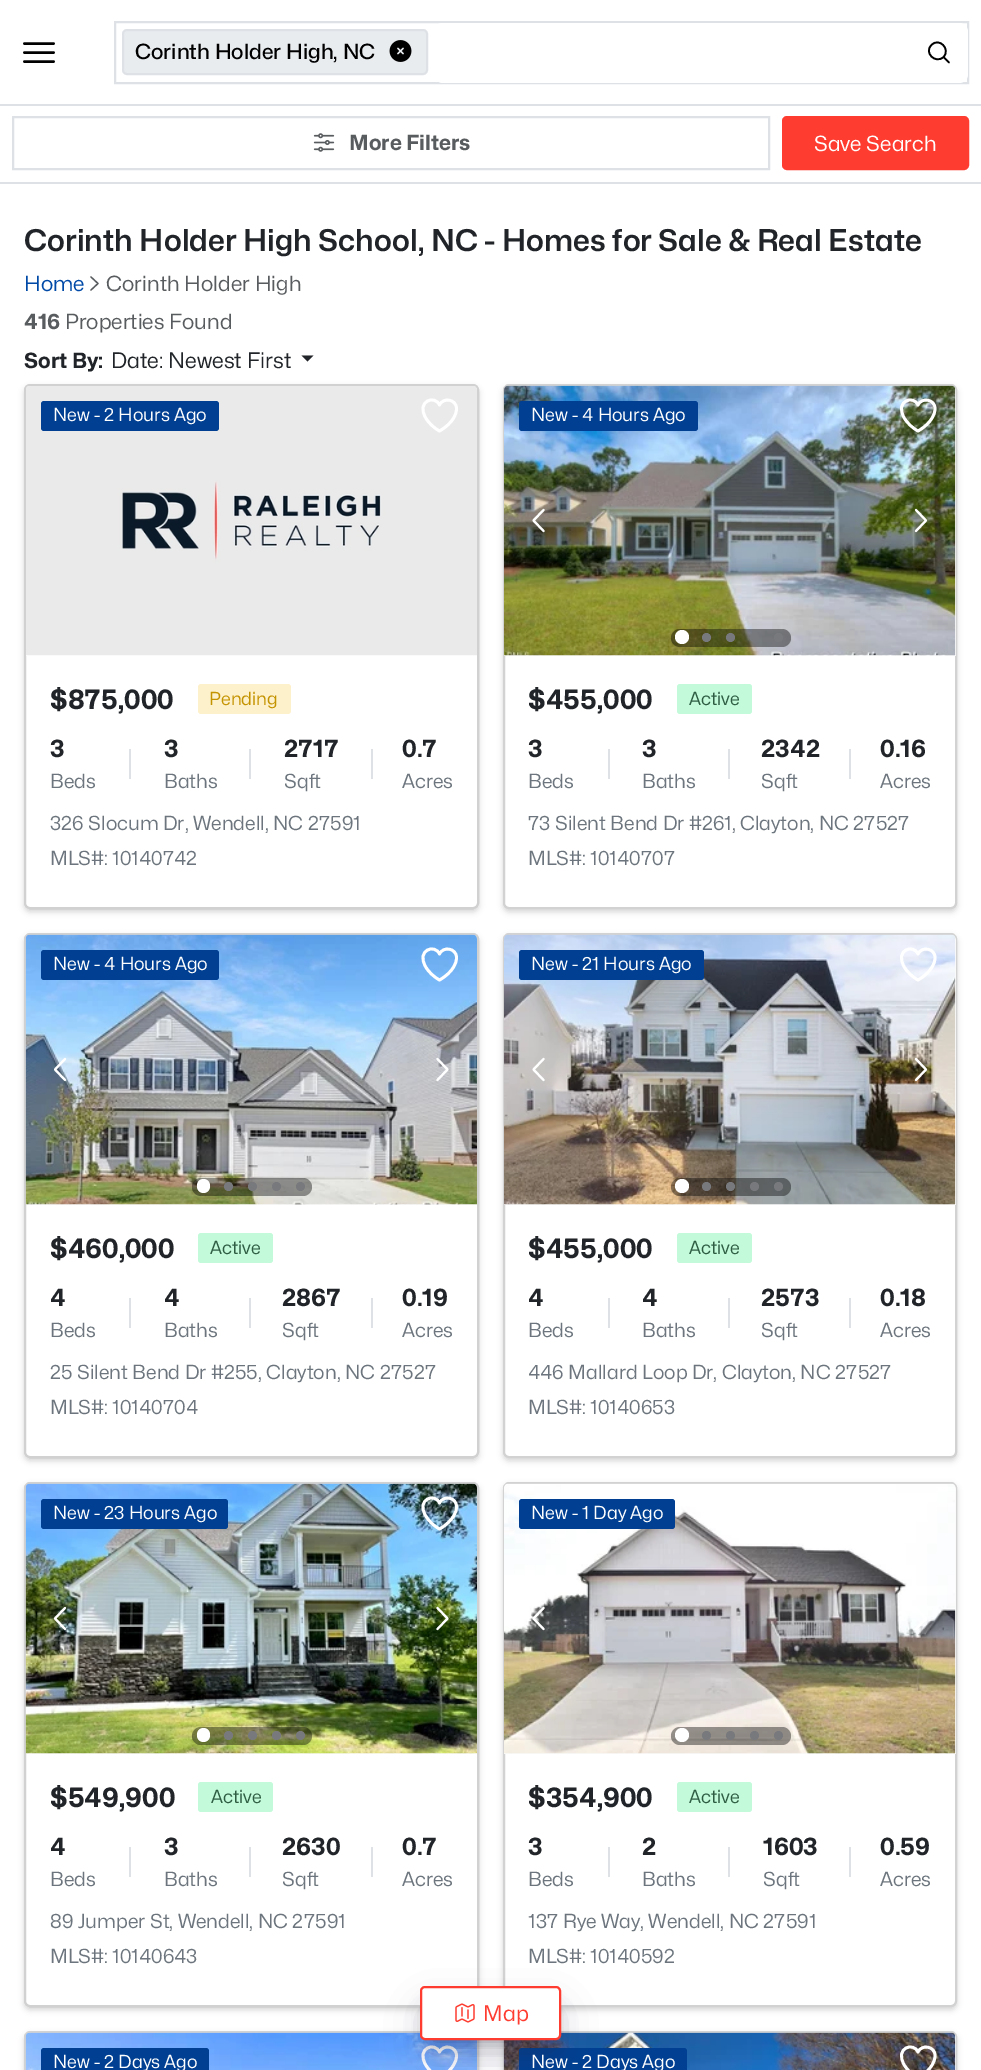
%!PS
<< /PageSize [981 2070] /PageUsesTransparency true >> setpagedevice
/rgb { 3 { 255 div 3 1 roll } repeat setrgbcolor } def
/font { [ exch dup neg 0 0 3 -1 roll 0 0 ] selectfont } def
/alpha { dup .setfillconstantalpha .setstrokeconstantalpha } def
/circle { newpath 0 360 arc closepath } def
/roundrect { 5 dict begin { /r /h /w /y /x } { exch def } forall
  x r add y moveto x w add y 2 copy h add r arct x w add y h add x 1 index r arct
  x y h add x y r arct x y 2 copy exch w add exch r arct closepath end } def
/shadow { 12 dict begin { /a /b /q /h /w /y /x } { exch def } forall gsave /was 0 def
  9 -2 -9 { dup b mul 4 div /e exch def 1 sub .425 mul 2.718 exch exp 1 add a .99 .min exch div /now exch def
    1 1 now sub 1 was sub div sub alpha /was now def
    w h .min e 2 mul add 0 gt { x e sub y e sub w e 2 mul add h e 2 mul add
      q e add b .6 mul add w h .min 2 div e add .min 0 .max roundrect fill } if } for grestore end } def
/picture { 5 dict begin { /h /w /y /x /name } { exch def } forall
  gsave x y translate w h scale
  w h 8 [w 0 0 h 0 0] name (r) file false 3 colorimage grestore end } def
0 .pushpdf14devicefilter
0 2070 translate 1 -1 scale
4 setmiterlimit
255 255 255 rgb
0 0 981 2070 rectfill
222 226 230 rgb
0 104 981 2 rectfill
0 0 0 rgb
2.6 setlinewidth
1 setlinecap
1 setlinejoin
24.5 43.5 moveto 53.5 43.5 lineto 24.5 52.5 moveto 53.5 52.5 lineto 24.5 61.5 moveto 53.5 61.5 lineto stroke
222 226 230 rgb
2 setlinewidth
0 setlinecap
0 setlinejoin
115 22 853 61 rectstroke
233 236 239 rgb
123 30 304 44 4 roundrect gsave fill grestore
222 226 230 rgb
stroke
(img/1.rgb) 389 40 23 22 picture
255 255 255 rgb
434 23 534 60 9 roundrect fill
0 0 0 rgb
1.7 setlinewidth
1 setlinecap
1 setlinejoin
949 62.5 moveto 943.5 57 lineto 943.5 57 moveto 951 49 939 37 931.5 45 curveto 923.5 52.5 935.5 64.5 943.5 57 curveto closepath stroke
222 226 230 rgb
0 182 981 2 rectfill
2 setlinewidth
0 setlinecap
0 setlinejoin
13 117 756 52 rectstroke
(img/2.rgb) 313 133 22 19 picture
254 60 48 rgb
783 117 185 52 4 roundrect gsave fill grestore
stroke
89 92 95 rgb
1.3 setlinewidth
1 setlinecap
1 setlinejoin
91 277 moveto 98 283.5 lineto 91 290 lineto stroke
33 37 41 rgb
301.5 355.5 moveto 313.5 355.5 lineto 307.5 361.5 lineto closepath fill
0 0 0 rgb
24 387 455 525 6 3 0.16 shadow
255 255 255 rgb
24 384 455 525 6 roundrect fill
0.18 alpha
0 0 0 rgb
2 setlinewidth
0 setlinecap
0 setlinejoin
25 385 453 523 5 roundrect stroke
1 alpha
(img/3.rgb) 26 386 451 270 picture
0 63 145 rgb
41 401 178 30 3 roundrect fill
255 255 255 rgb
2.8 setlinewidth
1 setlinecap
1 setlinejoin
456.5 408.5 moveto 456.5 399 443 397 439.5 405 curveto 435 394.5 416 401 425.5 417.5 curveto 428.5 423 434 428 439.5 431 curveto 439.5 431 456.5 422 456.5 408.5 curveto closepath stroke
253 241 204 rgb
198 684 93 30 3 roundrect fill
[
  [129 749 2 30 222 226 230]
  [249 749 2 30 222 226 230]
  [371 749 2 30 222 226 230]
] { aload pop rgb rectfill } forall
0 0 0 rgb
503 387 454 525 6 3 0.16 shadow
255 255 255 rgb
504 385 452 523 5 roundrect gsave fill grestore
210 210 210 rgb
2 setlinewidth
0 setlinecap
0 setlinejoin
stroke
250 250 250 rgb
509 386 moveto 951 386 lineto 954 386 956 388 956 391 curveto 956 656 lineto 504 656 lineto 504 391 lineto 504 388 506 386 509 386 curveto closepath fill
(img/4.rgb) 504 385 452 271 picture
255 255 255 rgb
2.1 setlinewidth
1 setlinecap
1 setlinejoin
543.5 531 moveto 533.5 520.5 lineto 543.5 510 lineto stroke
916 510 moveto 926 520.5 lineto 916 531 lineto stroke
0.4 alpha
0 0 0 rgb
671 629 120 18 9 roundrect fill
1 alpha
255 255 255 rgb
682 637 7 circle fill
120 121 124 rgb
706.5 637.5 4.5 circle fill
730.5 637.5 4.5 circle fill
754.5 637.5 4.5 circle fill
778.5 637.5 4.5 circle fill
0 63 145 rgb
519 401 179 30 3 roundrect fill
255 255 255 rgb
2.8 setlinewidth
935 408.5 moveto 935 399 921.5 397 918 405 curveto 913.5 394.5 894.5 401 904 417.5 curveto 907 423 912.5 428 918 431 curveto 918 431 935 422 935 408.5 curveto closepath stroke
194 250 218 rgb
677 684 75 30 3 roundrect fill
[
  [608 749 2 30 222 226 230]
  [728 749 2 30 222 226 230]
  [849 749 2 30 222 226 230]
] { aload pop rgb rectfill } forall
0 0 0 rgb
24 936 455 525 6 3 0.16 shadow
255 255 255 rgb
24 933 455 525 6 roundrect fill
0.18 alpha
0 0 0 rgb
2 setlinewidth
0 setlinecap
0 setlinejoin
25 934 453 523 5 roundrect stroke
1 alpha
250 250 250 rgb
31 935 moveto 472 935 lineto 475 935 477 937 477 940 curveto 477 1205 lineto 26 1205 lineto 26 940 lineto 26 937 28 935 31 935 curveto closepath fill
(img/5.rgb) 25 934 452 271 picture
255 255 255 rgb
2.1 setlinewidth
1 setlinecap
1 setlinejoin
65 1080 moveto 55 1069.5 lineto 65 1059 lineto stroke
437.5 1059 moveto 447.5 1069.5 lineto 437.5 1080 lineto stroke
0.4 alpha
0 0 0 rgb
192 1178 120 18 9 roundrect fill
1 alpha
255 255 255 rgb
197 1179 13 14 6.5 roundrect fill
120 121 124 rgb
228.5 1186.5 4.5 circle fill
252.5 1186.5 4.5 circle fill
276.5 1186.5 4.5 circle fill
300.5 1186.5 4.5 circle fill
0 63 145 rgb
41 950 178 30 3 roundrect fill
255 255 255 rgb
2.8 setlinewidth
456.5 957.5 moveto 456.5 948 443 946 439.5 954 curveto 435 943.5 416 950 425.5 966.5 curveto 428.5 972 434 977 439.5 980 curveto 439.5 980 456.5 971 456.5 957.5 curveto closepath stroke
194 250 218 rgb
198 1233 75 30 3 roundrect fill
[
  [129 1298 2 30 222 226 230]
  [249 1298 2 30 222 226 230]
  [371 1298 2 30 222 226 230]
] { aload pop rgb rectfill } forall
0 0 0 rgb
503 936 454 525 6 3 0.16 shadow
255 255 255 rgb
504 934 452 523 5 roundrect gsave fill grestore
210 210 210 rgb
2 setlinewidth
0 setlinecap
0 setlinejoin
stroke
250 250 250 rgb
509 935 moveto 951 935 lineto 954 935 956 937 956 940 curveto 956 1205 lineto 504 1205 lineto 504 940 lineto 504 937 506 935 509 935 curveto closepath fill
(img/6.rgb) 504 934 452 271 picture
255 255 255 rgb
2.1 setlinewidth
1 setlinecap
1 setlinejoin
543.5 1080 moveto 533.5 1069.5 lineto 543.5 1059 lineto stroke
916 1059 moveto 926 1069.5 lineto 916 1080 lineto stroke
0.4 alpha
0 0 0 rgb
671 1178 120 18 9 roundrect fill
1 alpha
255 255 255 rgb
682 1186 7 circle fill
120 121 124 rgb
706.5 1186.5 4.5 circle fill
730.5 1186.5 4.5 circle fill
754.5 1186.5 4.5 circle fill
778.5 1186.5 4.5 circle fill
0 63 145 rgb
519 950 185 30 3 roundrect fill
255 255 255 rgb
2.8 setlinewidth
935 957.5 moveto 935 948 921.5 946 918 954 curveto 913.5 943.5 894.5 950 904 966.5 curveto 907 972 912.5 977 918 980 curveto 918 980 935 971 935 957.5 curveto closepath stroke
194 250 218 rgb
677 1233 75 30 3 roundrect fill
[
  [608 1298 2 30 222 226 230]
  [728 1298 2 30 222 226 230]
  [849 1298 2 30 222 226 230]
] { aload pop rgb rectfill } forall
0 0 0 rgb
24 1485 455 525 6 3 0.16 shadow
255 255 255 rgb
24 1482 455 525 6 roundrect fill
0.18 alpha
0 0 0 rgb
2 setlinewidth
0 setlinecap
0 setlinejoin
25 1483 453 523 5 roundrect stroke
1 alpha
250 250 250 rgb
31 1484 moveto 472 1484 lineto 475 1484 477 1486 477 1489 curveto 477 1754 lineto 26 1754 lineto 26 1489 lineto 26 1486 28 1484 31 1484 curveto closepath fill
(img/7.rgb) 25 1483 452 271 picture
255 255 255 rgb
2.1 setlinewidth
1 setlinecap
1 setlinejoin
65 1629 moveto 55 1618.5 lineto 65 1608 lineto stroke
437.5 1608 moveto 447.5 1618.5 lineto 437.5 1629 lineto stroke
0.4 alpha
0 0 0 rgb
192 1727 120 18 9 roundrect fill
1 alpha
255 255 255 rgb
197 1728 13 14 6.5 roundrect fill
120 121 124 rgb
228.5 1735.5 4.5 circle fill
252.5 1735.5 4.5 circle fill
276.5 1735.5 4.5 circle fill
300.5 1735.5 4.5 circle fill
0 63 145 rgb
41 1499 187 30 3 roundrect fill
255 255 255 rgb
2.8 setlinewidth
456.5 1506.5 moveto 456.5 1497 443 1495 439.5 1503 curveto 435 1492.5 416 1499 425.5 1515.5 curveto 428.5 1521 434 1526 439.5 1529 curveto 439.5 1529 456.5 1520 456.5 1506.5 curveto closepath stroke
194 250 218 rgb
198 1782 75 30 3 roundrect fill
[
  [129 1847 2 30 222 226 230]
  [249 1847 2 30 222 226 230]
  [371 1847 2 30 222 226 230]
] { aload pop rgb rectfill } forall
0 0 0 rgb
503 1485 454 525 6 3 0.16 shadow
255 255 255 rgb
504 1483 452 523 5 roundrect gsave fill grestore
210 210 210 rgb
2 setlinewidth
0 setlinecap
0 setlinejoin
stroke
250 250 250 rgb
509 1484 moveto 951 1484 lineto 954 1484 956 1486 956 1489 curveto 956 1754 lineto 504 1754 lineto 504 1489 lineto 504 1486 506 1484 509 1484 curveto closepath fill
(img/8.rgb) 504 1483 452 271 picture
255 255 255 rgb
2.1 setlinewidth
1 setlinecap
1 setlinejoin
543.5 1629 moveto 533.5 1618.5 lineto 543.5 1608 lineto stroke
916 1608 moveto 926 1618.5 lineto 916 1629 lineto stroke
0.4 alpha
0 0 0 rgb
671 1727 120 18 9 roundrect fill
1 alpha
255 255 255 rgb
682 1735 7 circle fill
120 121 124 rgb
706.5 1735.5 4.5 circle fill
730.5 1735.5 4.5 circle fill
754.5 1735.5 4.5 circle fill
778.5 1735.5 4.5 circle fill
0 63 145 rgb
519 1499 156 30 3 roundrect fill
194 250 218 rgb
677 1782 75 30 3 roundrect fill
[
  [608 1847 2 30 222 226 230]
  [728 1847 2 30 222 226 230]
  [849 1847 2 30 222 226 230]
] { aload pop rgb rectfill } forall
0 0 0 rgb
24 2034 455 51 6 3 0.16 shadow
210 210 210 rgb
2 setlinewidth
0 setlinecap
0 setlinejoin
25 2032 453 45 5 roundrect stroke
(img/9.rgb) 25 2032 452 38 picture
0 63 145 rgb
41 2048 168 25 3 roundrect fill
255 255 255 rgb
2.8 setlinewidth
1 setlinecap
1 setlinejoin
456.5 2055.5 moveto 456.5 2046 443 2044 439.5 2052 curveto 435 2041.5 416 2048 425.5 2064.5 curveto 428.5 2070 434 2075 439.5 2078 curveto 439.5 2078 456.5 2069 456.5 2055.5 curveto closepath stroke
0 0 0 rgb
503 2034 454 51 6 3 0.16 shadow
210 210 210 rgb
2 setlinewidth
0 setlinecap
0 setlinejoin
504 2032 452 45 5 roundrect stroke
250 250 250 rgb
509 2033 moveto 951 2033 lineto 954 2033 956 2035 956 2038 curveto 956 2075 lineto 504 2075 lineto 504 2038 lineto 504 2035 506 2033 509 2033 curveto closepath fill
(img/10.rgb) 504 2032 452 38 picture
0 63 145 rgb
519 2048 168 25 3 roundrect fill
255 255 255 rgb
2.8 setlinewidth
1 setlinecap
1 setlinejoin
935 2055.5 moveto 935 2046 921.5 2044 918 2052 curveto 913.5 2041.5 894.5 2048 904 2064.5 curveto 907 2070 912.5 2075 918 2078 curveto 918 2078 935 2069 935 2055.5 curveto closepath stroke
0 0 0 rgb
432 2010 117 30 0 12 0.3 shadow
50 50 93 rgb
428 2013 126 39 0 20 0.25 shadow
255 255 255 rgb
421 1987 139 52 4 roundrect gsave fill grestore
254 60 48 rgb
2 setlinewidth
0 setlinecap
0 setlinejoin
stroke
(img/11.rgb) 455 2003 20 20 picture
/MonaSans-Medium 21 font
0 0 0 rgb
135 59 moveto (Corinth Holder High, NC) show
/MonaSans-Bold 21 font
89 92 95 rgb
349 150 moveto (More Filters) show
/MonaSans-Regular 21 font
255 255 255 rgb
814 151 moveto (Save Search) show
/MonaSans-SemiBold 30 font
33 37 41 rgb
24 251 moveto (Corinth Holder High School, NC - Homes for Sale & Real Estate) show
/MonaSans-Regular 21 font
0 73 167 rgb
24 291 moveto (Home) show
89 92 95 rgb
106 291 moveto (Corinth Holder High) show
/MonaSans-Bold 21 font
24 329 moveto (416) show
/MonaSans-Regular 21 font
65 329 moveto (Properties Found) show
/MonaSans-Bold 21 font
33 37 41 rgb
24 368 moveto (Sort By:) show
/MonaSans-Regular 21.5 font
111 368 moveto (Date: Newest First) show
/MonaSans-Regular 18 font
255 255 255 rgb
53 421 moveto (New - 2 Hours Ago) show
/MonaSans-Bold 27 font
33 37 41 rgb
50 709 moveto ($875,000) show
/MonaSans-Regular 18 font
196 147 0 rgb
209 705 moveto (Pending) show
/MonaSans-Bold 24 font
33 37 41 rgb
50 757 moveto (3) show
/MonaSans-Regular 19.5 font
108 117 125 rgb
50 788 moveto (Beds) show
/MonaSans-Bold 24 font
33 37 41 rgb
164 757 moveto (3) show
/MonaSans-Regular 19.5 font
108 117 125 rgb
164 788 moveto (Baths) show
/MonaSans-Bold 24 font
33 37 41 rgb
284 757 moveto (2717) show
/MonaSans-Regular 19.5 font
108 117 125 rgb
284 788 moveto (Sqft) show
/MonaSans-Bold 24 font
33 37 41 rgb
402 757 moveto (0.7) show
/MonaSans-Regular 19.5 font
108 117 125 rgb
[
  [(Acres) 402 788]
  [(326 Slocum Dr, Wendell, NC 27591) 50 830]
  [(MLS#: 10140742) 50 865]
] { aload pop moveto show } forall
/MonaSans-Regular 18 font
255 255 255 rgb
531 421 moveto (New - 4 Hours Ago) show
/MonaSans-Bold 27 font
33 37 41 rgb
528 709 moveto ($455,000) show
/MonaSans-Regular 18 font
45 92 66 rgb
689 705 moveto (Active) show
/MonaSans-Bold 24 font
33 37 41 rgb
528 757 moveto (3) show
/MonaSans-Regular 19.5 font
108 117 125 rgb
528 788 moveto (Beds) show
/MonaSans-Bold 24 font
33 37 41 rgb
642 757 moveto (3) show
/MonaSans-Regular 19.5 font
108 117 125 rgb
642 788 moveto (Baths) show
/MonaSans-Bold 24 font
33 37 41 rgb
761 757 moveto (2342) show
/MonaSans-Regular 19.5 font
108 117 125 rgb
761 788 moveto (Sqft) show
/MonaSans-Bold 24 font
33 37 41 rgb
880 757 moveto (0.16) show
/MonaSans-Regular 19.5 font
108 117 125 rgb
[
  [(Acres) 880 788]
  [(73 Silent Bend Dr #261, Clayton, NC 27527) 528 830]
  [(MLS#: 10140707) 528 865]
] { aload pop moveto show } forall
/MonaSans-Regular 18 font
255 255 255 rgb
53 970 moveto (New - 4 Hours Ago) show
/MonaSans-Bold 27 font
33 37 41 rgb
50 1258 moveto ($460,000) show
/MonaSans-Regular 18 font
45 92 66 rgb
210 1254 moveto (Active) show
/MonaSans-Bold 24 font
33 37 41 rgb
50 1306 moveto (4) show
/MonaSans-Regular 19.5 font
108 117 125 rgb
50 1337 moveto (Beds) show
/MonaSans-Bold 24 font
33 37 41 rgb
164 1306 moveto (4) show
/MonaSans-Regular 19.5 font
108 117 125 rgb
164 1337 moveto (Baths) show
/MonaSans-Bold 24 font
33 37 41 rgb
282 1306 moveto (2867) show
/MonaSans-Regular 19.5 font
108 117 125 rgb
282 1337 moveto (Sqft) show
/MonaSans-Bold 24 font
33 37 41 rgb
402 1306 moveto (0.19) show
/MonaSans-Regular 19.5 font
108 117 125 rgb
[
  [(Acres) 402 1337]
  [(25 Silent Bend Dr #255, Clayton, NC 27527) 50 1379]
  [(MLS#: 10140704) 50 1414]
] { aload pop moveto show } forall
/MonaSans-Regular 18 font
255 255 255 rgb
531 970 moveto (New - 21 Hours Ago) show
/MonaSans-Bold 27 font
33 37 41 rgb
528 1258 moveto ($455,000) show
/MonaSans-Regular 18 font
45 92 66 rgb
689 1254 moveto (Active) show
/MonaSans-Bold 24 font
33 37 41 rgb
528 1306 moveto (4) show
/MonaSans-Regular 19.5 font
108 117 125 rgb
528 1337 moveto (Beds) show
/MonaSans-Bold 24 font
33 37 41 rgb
642 1306 moveto (4) show
/MonaSans-Regular 19.5 font
108 117 125 rgb
642 1337 moveto (Baths) show
/MonaSans-Bold 24 font
33 37 41 rgb
761 1306 moveto (2573) show
/MonaSans-Regular 19.5 font
108 117 125 rgb
761 1337 moveto (Sqft) show
/MonaSans-Bold 24 font
33 37 41 rgb
880 1306 moveto (0.18) show
/MonaSans-Regular 19.5 font
108 117 125 rgb
[
  [(Acres) 880 1337]
  [(446 Mallard Loop Dr, Clayton, NC 27527) 528 1379]
  [(MLS#: 10140653) 528 1414]
] { aload pop moveto show } forall
/MonaSans-Regular 18 font
255 255 255 rgb
53 1519 moveto (New - 23 Hours Ago) show
/MonaSans-Bold 27 font
33 37 41 rgb
50 1807 moveto ($549,900) show
/MonaSans-Regular 18 font
45 92 66 rgb
211 1803 moveto (Active) show
/MonaSans-Bold 24 font
33 37 41 rgb
50 1855 moveto (4) show
/MonaSans-Regular 19.5 font
108 117 125 rgb
50 1886 moveto (Beds) show
/MonaSans-Bold 24 font
33 37 41 rgb
164 1855 moveto (3) show
/MonaSans-Regular 19.5 font
108 117 125 rgb
164 1886 moveto (Baths) show
/MonaSans-Bold 24 font
33 37 41 rgb
282 1855 moveto (2630) show
/MonaSans-Regular 19.5 font
108 117 125 rgb
282 1886 moveto (Sqft) show
/MonaSans-Bold 24 font
33 37 41 rgb
402 1855 moveto (0.7) show
/MonaSans-Regular 19.5 font
108 117 125 rgb
[
  [(Acres) 402 1886]
  [(89 Jumper St, Wendell, NC 27591) 50 1928]
  [(MLS#: 10140643) 50 1963]
] { aload pop moveto show } forall
/MonaSans-Regular 18 font
255 255 255 rgb
531 1519 moveto (New - 1 Day Ago) show
/MonaSans-Bold 27 font
33 37 41 rgb
528 1807 moveto ($354,900) show
/MonaSans-Regular 18 font
45 92 66 rgb
689 1803 moveto (Active) show
/MonaSans-Bold 24 font
33 37 41 rgb
528 1855 moveto (3) show
/MonaSans-Regular 19.5 font
108 117 125 rgb
528 1886 moveto (Beds) show
/MonaSans-Bold 24 font
33 37 41 rgb
642 1855 moveto (2) show
/MonaSans-Regular 19.5 font
108 117 125 rgb
642 1886 moveto (Baths) show
/MonaSans-Bold 24 font
33 37 41 rgb
763 1855 moveto (1603) show
/MonaSans-Regular 19.5 font
108 117 125 rgb
763 1886 moveto (Sqft) show
/MonaSans-Bold 24 font
33 37 41 rgb
880 1855 moveto (0.59) show
/MonaSans-Regular 19.5 font
108 117 125 rgb
[
  [(Acres) 880 1886]
  [(137 Rye Way, Wendell, NC 27591) 528 1928]
  [(MLS#: 10140592) 528 1963]
] { aload pop moveto show } forall
/MonaSans-Regular 18 font
255 255 255 rgb
53 2068 moveto (New - 2 Days Ago) show
531 2068 moveto (New - 2 Days Ago) show
/MonaSans-Regular 21.5 font
254 60 48 rgb
483 2021 moveto (Map) show
.poppdf14devicefilter showpage
